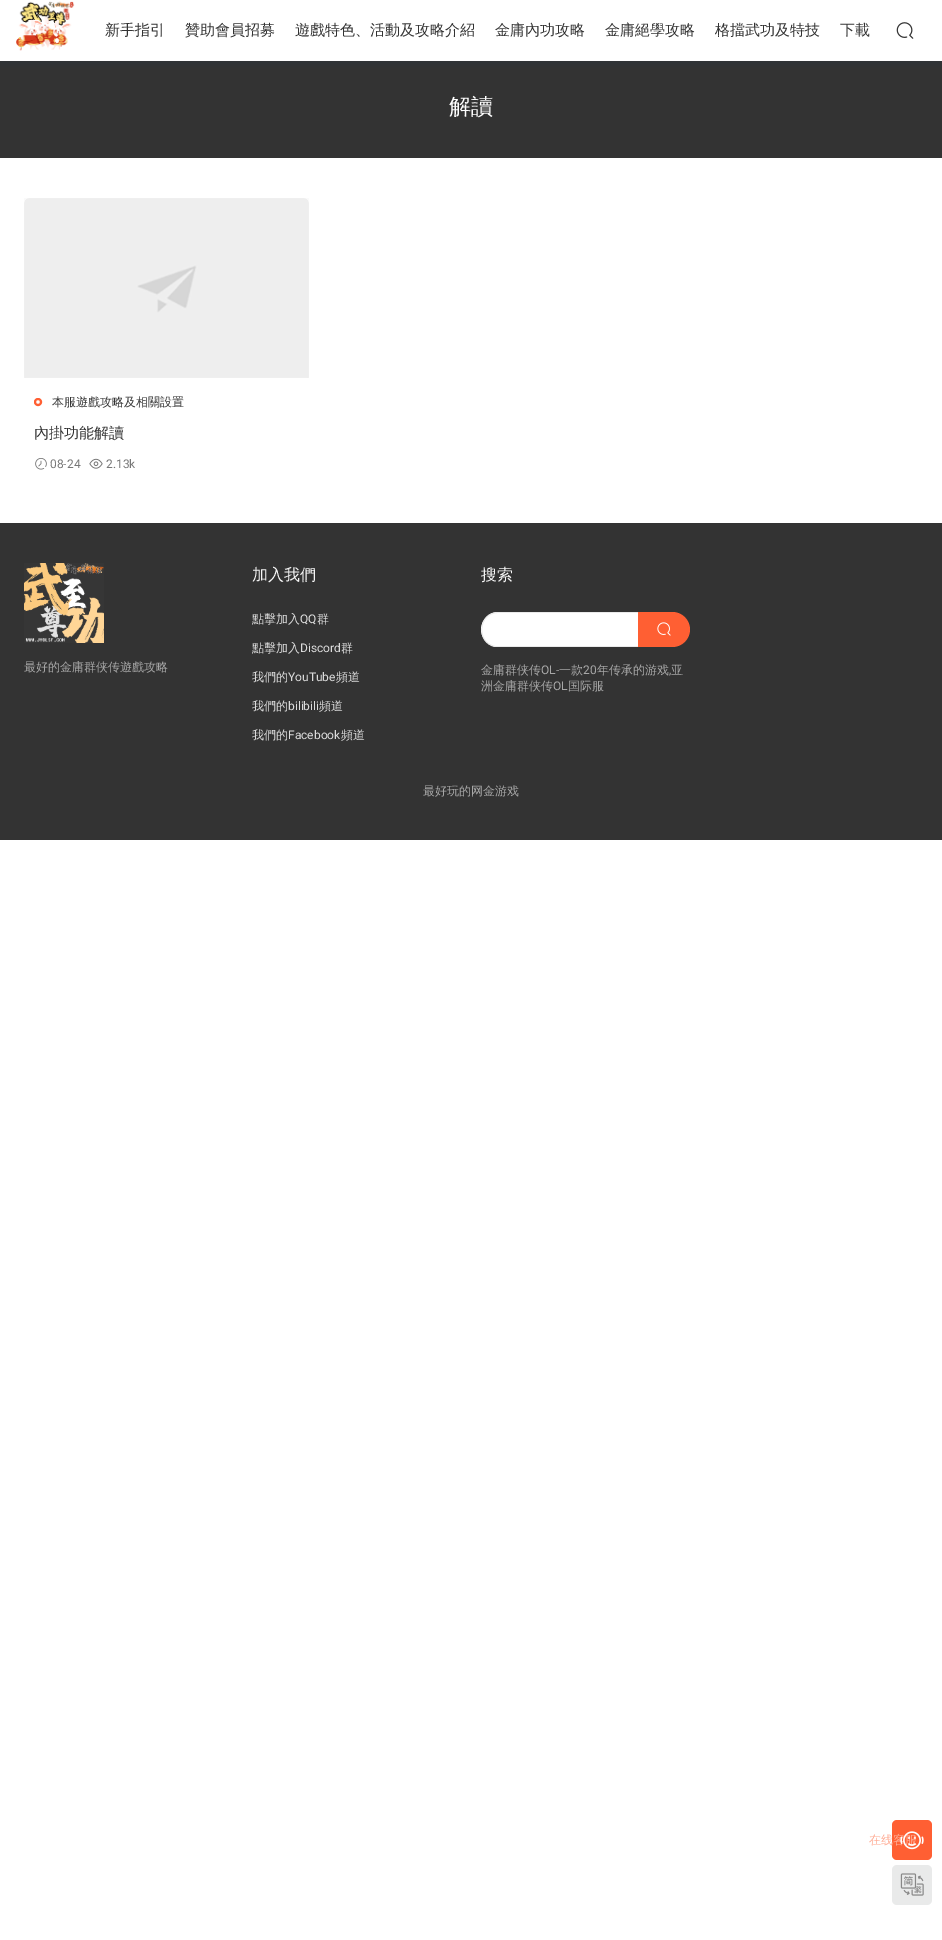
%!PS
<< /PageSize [942 1940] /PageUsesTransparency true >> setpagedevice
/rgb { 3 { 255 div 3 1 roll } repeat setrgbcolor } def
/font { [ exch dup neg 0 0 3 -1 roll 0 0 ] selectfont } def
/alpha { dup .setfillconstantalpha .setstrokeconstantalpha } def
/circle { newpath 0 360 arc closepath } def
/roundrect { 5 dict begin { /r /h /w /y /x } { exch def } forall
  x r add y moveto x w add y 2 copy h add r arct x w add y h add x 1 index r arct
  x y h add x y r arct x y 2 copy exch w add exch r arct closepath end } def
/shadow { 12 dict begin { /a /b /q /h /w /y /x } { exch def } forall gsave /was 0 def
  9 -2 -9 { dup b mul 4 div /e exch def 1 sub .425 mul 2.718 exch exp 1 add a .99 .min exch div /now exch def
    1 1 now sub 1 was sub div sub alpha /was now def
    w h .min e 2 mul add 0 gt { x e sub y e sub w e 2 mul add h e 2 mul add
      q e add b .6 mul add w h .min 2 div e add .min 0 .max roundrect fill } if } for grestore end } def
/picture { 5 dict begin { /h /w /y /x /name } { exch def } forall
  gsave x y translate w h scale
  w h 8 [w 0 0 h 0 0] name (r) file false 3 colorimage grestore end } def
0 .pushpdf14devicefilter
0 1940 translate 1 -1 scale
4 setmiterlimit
255 255 255 rgb
0 0 942 1940 rectfill
51 51 51 rgb
0 61 942 97 rectfill
17 58 93 rgb
0 4 942 61 0 5 0.1 shadow
255 255 255 rgb
0 0 942 61 rectfill
(img/1.rgb) 16 1 59 50 picture
(img/2.rgb) 896 22 18 17 picture
(img/3.rgb) 24 198 285 180 picture
255 95 51 rgb
2 setlinewidth
38 402 3 circle stroke
(img/4.rgb) 35 458 12 12 picture
(img/5.rgb) 89 458 14 11 picture
51 51 51 rgb
0 523 942 317 rectfill
(img/6.rgb) 24 563 80 80 picture
255 255 255 rgb
498.5 612 moveto 638 612 lineto 638 647 lineto 498.5 647 lineto 489 647 481 639 481 629.5 curveto 481 620 489 612 498.5 612 curveto closepath fill
234 234 234 rgb
498 612 moveto 638 612 lineto 638 647 lineto 495 647 lineto 475 643 478 612 498 612 curveto closepath 498 613 moveto 638 613 lineto 638 646 lineto 495 646 lineto 476 642 479 613 498 613 curveto closepath eofill
255 95 51 rgb
638 612 moveto 672.5 612 lineto 682 612 690 620 690 629.5 curveto 690 639 682 647 672.5 647 curveto 638 647 lineto closepath fill
(img/7.rgb) 657 622 14 14 picture
892 1820 40 40 5 roundrect fill
233 234 234 rgb
892 1865 40 40 5 roundrect fill
(img/9.rgb) 900 1873 24 23 picture
/WenQuanYiZenHei-Medium 15 font
51 51 51 rgb
[
  [(新手指引) 105 35]
  [(贊助會員招募) 185 35]
  [(遊戲特色、活動及攻略介紹) 295 35]
  [(金庸內功攻略) 495 35]
  [(金庸絕學攻略) 605 35]
  [(格擋武功及特技) 715 35]
  [(下載) 840 35]
] { aload pop moveto show } forall
/WenQuanYiZenHei-Medium 22 font
255 255 255 rgb
449 114 moveto (解讀) show
/WenQuanYiZenHei-Medium 12 font
51 51 51 rgb
52 406 moveto (本服遊戲攻略及相關設置) show
/WenQuanYiZenHei-Medium 15 font
34 438 moveto (內掛功能解讀) show
/Roboto-Regular 12 font
119 119 119 rgb
50 468 moveto (08-24) show
106 468 moveto (2.13k) show
/WenQuanYiZenHei-Medium 12 font
167 167 167 rgb
24 671 moveto (最好的金庸群侠传遊戲攻略) show
/WenQuanYiZenHei-Medium 16 font
245 245 245 rgb
252 580 moveto (加入我們) show
/WenQuanYiZenHei-Medium 12 font
220 220 220 rgb
252 623 moveto (點擊加入) show
/Roboto-Regular 12 font
300 623 moveto (QQ) show
/WenQuanYiZenHei-Medium 12 font
317 623 moveto (群) show
252 652 moveto (點擊加入) show
/Roboto-Regular 12 font
300 652 moveto (Discord) show
/WenQuanYiZenHei-Medium 12 font
341 652 moveto (群) show
252 681 moveto (我們的) show
/Roboto-Regular 12 font
288 681 moveto (YouTube) show
/WenQuanYiZenHei-Medium 12 font
336 681 moveto (頻道) show
252 710 moveto (我們的) show
/Roboto-Regular 12 font
288 710 moveto (bilibili) show
/WenQuanYiZenHei-Medium 12 font
319 710 moveto (頻道) show
252 739 moveto (我們的) show
/Roboto-Regular 12 font
288 739 moveto (Facebook) show
/WenQuanYiZenHei-Medium 12 font
341 739 moveto (頻道) show
/WenQuanYiZenHei-Medium 16 font
245 245 245 rgb
481 580 moveto (搜索) show
/WenQuanYiZenHei-Medium 12 font
167 167 167 rgb
481 674 moveto (金庸群侠传) show
/Roboto-Regular 12 font
541 674 moveto (OL-) show
/WenQuanYiZenHei-Medium 12 font
559 674 moveto (一款) show
/Roboto-Regular 12 font
583 674 moveto (20) show
/WenQuanYiZenHei-Medium 12 font
597 674 moveto (年传承的游戏) show
/Roboto-Regular 12 font
669 674 moveto (,) show
/WenQuanYiZenHei-Medium 12 font
671 674 moveto (亚) show
481 690 moveto (洲金庸群侠传) show
/Roboto-Regular 12 font
553 690 moveto (OL) show
/WenQuanYiZenHei-Medium 12 font
568 690 moveto (国际服) show
423 795 moveto (最好玩的网金游戏) show
255 172 149 rgb
869 1844 moveto (在线客服) show
(img/8.rgb) 900 1831 24 19 picture
.poppdf14devicefilter showpage
